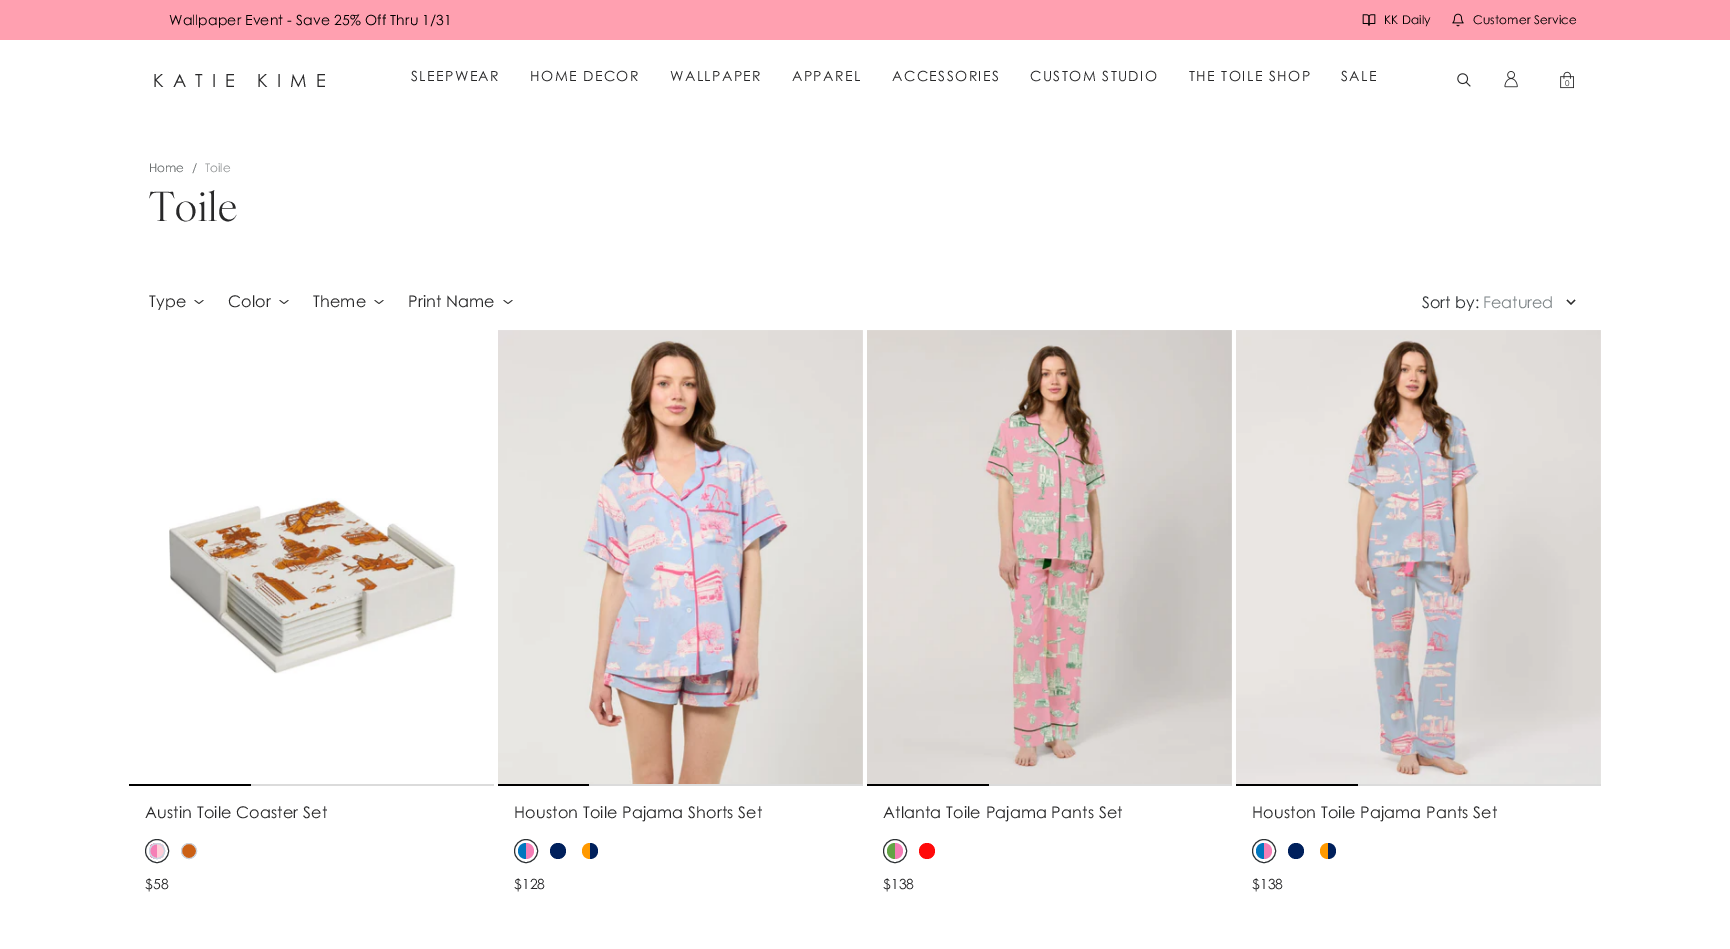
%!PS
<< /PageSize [1730 949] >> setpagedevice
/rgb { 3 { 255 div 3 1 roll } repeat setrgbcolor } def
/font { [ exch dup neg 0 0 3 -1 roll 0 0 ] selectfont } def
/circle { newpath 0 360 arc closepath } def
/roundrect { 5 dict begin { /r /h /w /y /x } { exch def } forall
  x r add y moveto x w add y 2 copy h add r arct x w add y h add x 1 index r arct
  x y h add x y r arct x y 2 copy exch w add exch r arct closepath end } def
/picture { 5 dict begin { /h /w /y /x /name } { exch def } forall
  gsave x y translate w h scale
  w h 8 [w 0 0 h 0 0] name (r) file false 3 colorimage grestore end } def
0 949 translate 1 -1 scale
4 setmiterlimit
255 255 255 rgb
0 0 1730 949 rectfill
255 160 176 rgb
0 0 1730 40 rectfill
(img/1.rgb) 1362 14 14 12 picture
(img/2.rgb) 1452 13 12 14 picture
(img/3.rgb) 1457 73 14 14 picture
(img/4.rgb) 1504 71 14 17 picture
44 44 44 rgb
0.8 setlinewidth
1 setlinecap
203 300.5 moveto 199 303.5 lineto 195 300.5 lineto stroke
288 300.5 moveto 284 303.5 lineto 280 300.5 lineto stroke
383 300.5 moveto 379 303.5 lineto 375 300.5 lineto stroke
512 300.5 moveto 508 303.5 lineto 504 300.5 lineto stroke
1.2 setlinewidth
0 setlinecap
1575 300 moveto 1571 304 lineto 1567 300 lineto stroke
(img/6.rgb) 169 498 287 176 picture
219 219 219 rgb
251 784 243 2 rectfill
0 0 0 rgb
129 784 122 2 rectfill
45 49 52 rgb
1 setlinewidth
157 851 11.5 circle stroke
gsave
149 843 16 16 8 roundrect clip newpath
255 204 216 rgb
157 843 7 16 rectfill
245 126 182 rgb
150 843 7 16 rectfill
grestore
203 213 225 rgb
157 851 7.5 circle stroke
157 851 7.5 circle stroke
203 96 21 rgb
189 851 7.5 circle gsave fill grestore
203 213 225 rgb
stroke
(img/7.rgb) 498 330 365 454 picture
219 219 219 rgb
589 784 274 2 rectfill
0 0 0 rgb
498 784 91 2 rectfill
45 49 52 rgb
526 851 11.5 circle stroke
0 118 190 rgb
526 843 moveto 526 859 lineto 521.5 859 518 855.5 518 851 curveto 518 846.5 521.5 843 526 843 curveto closepath fill
245 126 182 rgb
526 843 moveto 530.5 843 534 846.5 534 851 curveto 534 855.5 530.5 859 526 859 curveto closepath fill
0 32 92 rgb
558 851 8 circle fill
255 153 0 rgb
590 843 moveto 590 859 lineto 585.5 859 582 855.5 582 851 curveto 582 846.5 585.5 843 590 843 curveto closepath fill
0 32 92 rgb
590 843 moveto 594.5 843 598 846.5 598 851 curveto 598 855.5 594.5 859 590 859 curveto closepath fill
(img/8.rgb) 867 330 365 454 picture
219 219 219 rgb
989 784 243 2 rectfill
0 0 0 rgb
867 784 122 2 rectfill
45 49 52 rgb
895 851 11.5 circle stroke
98 163 68 rgb
895 843 moveto 895 859 lineto 890.5 859 887 855.5 887 851 curveto 887 846.5 890.5 843 895 843 curveto closepath fill
245 126 182 rgb
895 843 moveto 899.5 843 903 846.5 903 851 curveto 903 855.5 899.5 859 895 859 curveto closepath fill
255 10 10 rgb
927 851 8 circle fill
(img/9.rgb) 1236 330 365 454 picture
219 219 219 rgb
1358 784 243 2 rectfill
0 0 0 rgb
1236 784 122 2 rectfill
45 49 52 rgb
1264 851 11.5 circle stroke
0 118 190 rgb
1264 843 moveto 1264 859 lineto 1259.5 859 1256 855.5 1256 851 curveto 1256 846.5 1259.5 843 1264 843 curveto closepath fill
245 126 182 rgb
1264 843 moveto 1268.5 843 1272 846.5 1272 851 curveto 1272 855.5 1268.5 859 1264 859 curveto closepath fill
0 32 92 rgb
1296 851 8 circle fill
255 153 0 rgb
1328 843 moveto 1328 859 lineto 1323.5 859 1320 855.5 1320 851 curveto 1320 846.5 1323.5 843 1328 843 curveto closepath fill
0 32 92 rgb
1328 843 moveto 1332.5 843 1336 846.5 1336 851 curveto 1336 855.5 1332.5 859 1328 859 curveto closepath fill
/CenturyGothic-Regular 14 font
0 0 0 rgb
169 25 moveto 0.15 0 (Wallpaper Event - Save 25% Off Thru 1/31) ashow
/CenturyGothic-Regular 12 font
1384 24 moveto 0.15 0 (KK Daily) ashow
1473 24 moveto 0.15 0 (Customer Service) ashow
/CenturyGothic-Regular 18 font
40 40 41 rgb
153 87 moveto 9 0 (KATIE KIME) ashow
/CenturyGothic-Regular 14 font
411 81 moveto 1.4 0 (SLEEPWEAR) ashow
530 81 moveto 1.4 0 (HOME DECOR) ashow
670 81 moveto 1.4 0 (WALLPAPER) ashow
792 81 moveto 1.4 0 (APPAREL) ashow
892 81 moveto 1.4 0 (ACCESSORIES) ashow
1030 81 moveto 1.4 0 (CUSTOM STUDIO) ashow
1189 81 moveto 1.4 0 (THE TOILE SHOP) ashow
1341 81 moveto 1.4 0 (SALE) ashow
/CenturyGothic-Regular 8 font
1565 86 moveto 0.15 0 (0) ashow
(img/5.rgb) 1560 71 14 18 picture
/CenturyGothic-Regular 12 font
104 108 109 rgb
149 172 moveto (Home) show
192 172 moveto (/) show
149 152 153 rgb
205 172 moveto (Toile) show
/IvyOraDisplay-Regular 40 font
40 40 41 rgb
149 221 moveto 0.75 0 (Toile) ashow
/CenturyGothic-Regular 16 font
149 307 moveto 0.15 0 (Type) ashow
228 307 moveto 0.15 0 (Color) ashow
313 307 moveto 0.15 0 (Theme) ashow
408 307 moveto 0.15 0 (Print Name) ashow
45 49 52 rgb
1422 308 moveto (Sort by:) show
126 133 136 rgb
1483 308 moveto (Featured) show
40 40 41 rgb
145 818 moveto 0.15 0 (Austin Toile Coaster Set) ashow
/CenturyGothic-Regular 14 font
145 889 moveto ($58) show
/CenturyGothic-Regular 16 font
514 818 moveto 0.15 0 (Houston Toile Pajama Shorts Set) ashow
/CenturyGothic-Regular 14 font
514 889 moveto ($128) show
/CenturyGothic-Regular 16 font
883 818 moveto 0.15 0 (Atlanta Toile Pajama Pants Set) ashow
/CenturyGothic-Regular 14 font
883 889 moveto ($138) show
/CenturyGothic-Regular 16 font
1252 818 moveto 0.15 0 (Houston Toile Pajama Pants Set) ashow
/CenturyGothic-Regular 14 font
1252 889 moveto ($138) show
showpage
